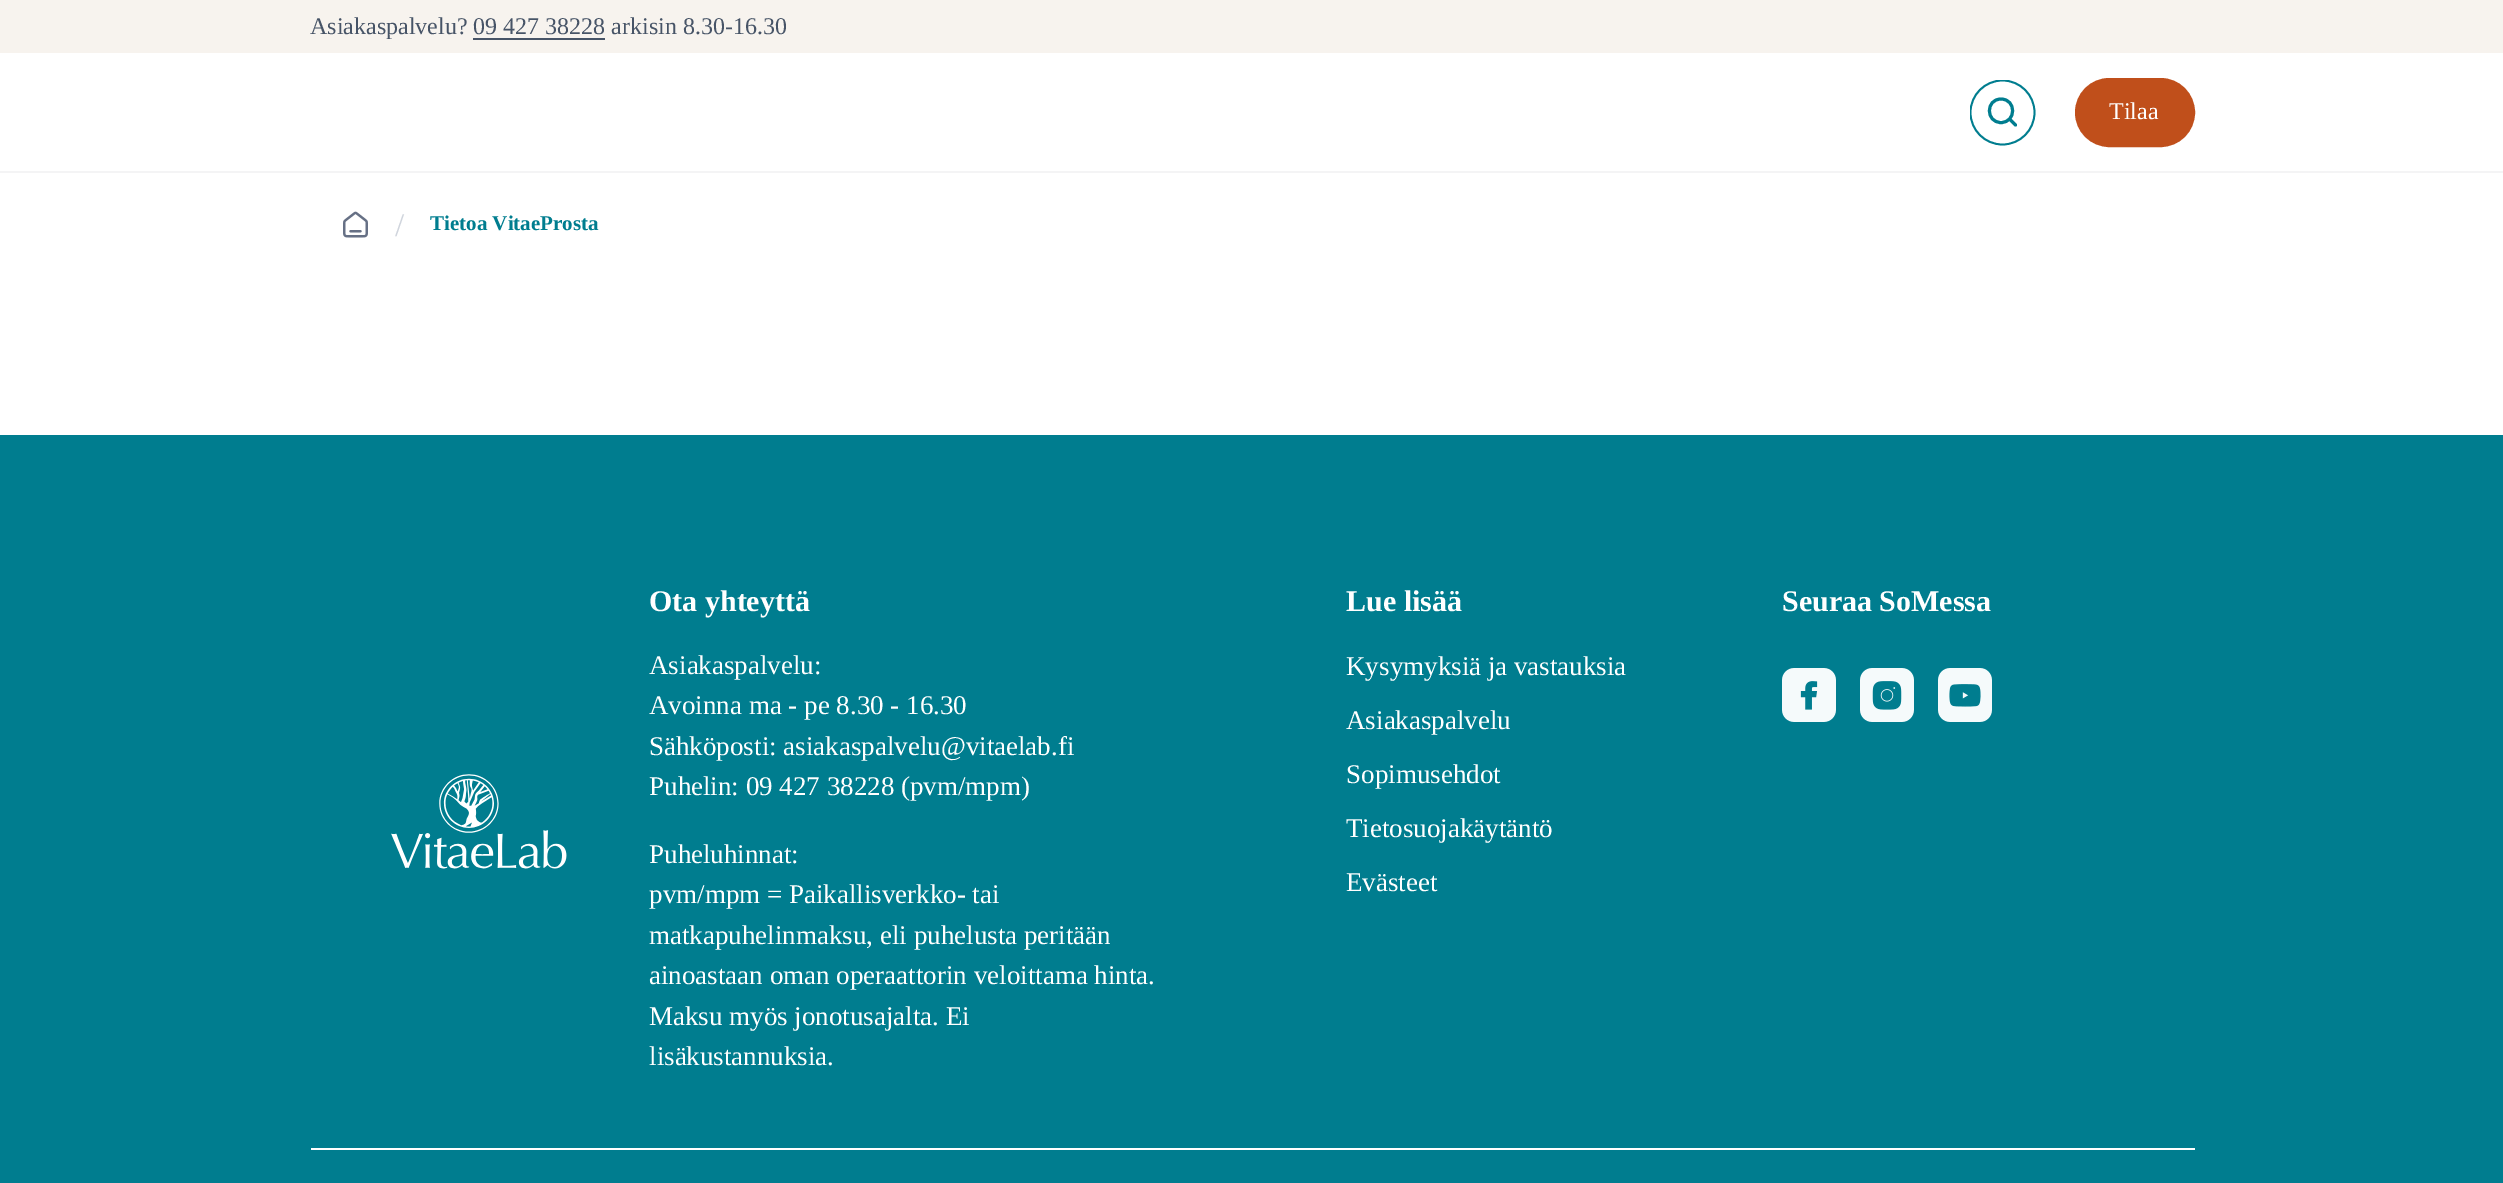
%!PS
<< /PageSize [2503 1183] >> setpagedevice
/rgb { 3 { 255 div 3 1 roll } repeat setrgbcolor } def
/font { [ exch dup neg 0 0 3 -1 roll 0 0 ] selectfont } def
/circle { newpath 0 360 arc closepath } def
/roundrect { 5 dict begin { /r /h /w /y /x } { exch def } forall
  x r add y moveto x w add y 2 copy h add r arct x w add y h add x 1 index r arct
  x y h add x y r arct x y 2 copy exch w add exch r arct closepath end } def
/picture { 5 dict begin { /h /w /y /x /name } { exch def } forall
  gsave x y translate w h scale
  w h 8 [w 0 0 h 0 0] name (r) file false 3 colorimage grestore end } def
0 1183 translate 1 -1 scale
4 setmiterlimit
255 255 255 rgb
0 0 2503 1183 rectfill
[
  [0 0 2503 53 247 243 238]
  [473 38 132 2 71 84 103]
  [0 171 2503 2 244 244 245]
] { aload pop rgb rectfill } forall
gsave
1970 80 66 66 rectclip
0 125 143 rgb
1.8 setlinewidth
2002.5 112.5 32 circle stroke
grestore
0 125 143 rgb
3 setlinewidth
1 setlinecap
1 setlinejoin
2001 122.5 moveto 2016.5 122.5 2016.5 99 2001 99 curveto 1985.5 99 1985.5 122.5 2001 122.5 curveto closepath 2015.5 125 moveto 2009.5 119 lineto stroke
192 79 27 rgb
2076 79 118 67 33.5 roundrect gsave fill grestore
2 setlinewidth
0 setlinecap
0 setlinejoin
stroke
(img/1.rgb) 343 211 25 27 picture
0 125 143 rgb
0 435 2503 748 rectfill
(img/2.rgb) 391 774 176 95 picture
(img/3.rgb) 1782 668 54 54 picture
(img/4.rgb) 1860 668 54 54 picture
(img/5.rgb) 1938 668 54 54 picture
255 255 255 rgb
311 1148 1884 2 rectfill
/LiberationSerif-Regular 24 font
71 84 103 rgb
310 34 moveto (Asiakaspalvelu? 09 427 38228 arkisin 8.30-16.30) show
255 255 255 rgb
2109 119 moveto (Tilaa) show
/LiberationSerif-Regular 33 font
208 213 221 rgb
395 236 moveto (/) show
/LiberationSerif-Bold 21 font
0 125 143 rgb
430 230 moveto (Tietoa VitaeProsta) show
/LiberationSerif-Bold 30 font
255 255 255 rgb
649 611 moveto (Ota yhteyttä) show
/LiberationSerif-Regular 27 font
[
  [(Asiakaspalvelu:) 649 674]
  [(Avoinna ma - pe 8.30 - 16.30) 649 714]
  [(Sähköposti: asiakaspalvelu@vitaelab.fi) 649 755]
  [(Puhelin: 09 427 38228 \(pvm/mpm\)) 649 795]
  [(Puheluhinnat:) 649 863]
  [(pvm/mpm = Paikallisverkko- tai) 649 903]
  [(matkapuhelinmaksu, eli puhelusta peritään) 649 944]
  [(ainoastaan oman operaattorin veloittama hinta.) 649 984]
  [(Maksu myös jonotusajalta. Ei) 649 1025]
  [(lisäkustannuksia.) 649 1065]
] { aload pop moveto show } forall
/LiberationSerif-Bold 30 font
1346 611 moveto (Lue lisää) show
/LiberationSerif-Regular 27 font
[
  [(Kysymyksiä ja vastauksia) 1346 675]
  [(Asiakaspalvelu) 1346 729]
  [(Sopimusehdot) 1346 783]
  [(Tietosuojakäytäntö) 1346 837]
  [(Evästeet) 1346 891]
] { aload pop moveto show } forall
/LiberationSerif-Bold 30 font
1782 611 moveto (Seuraa SoMessa) show
showpage
